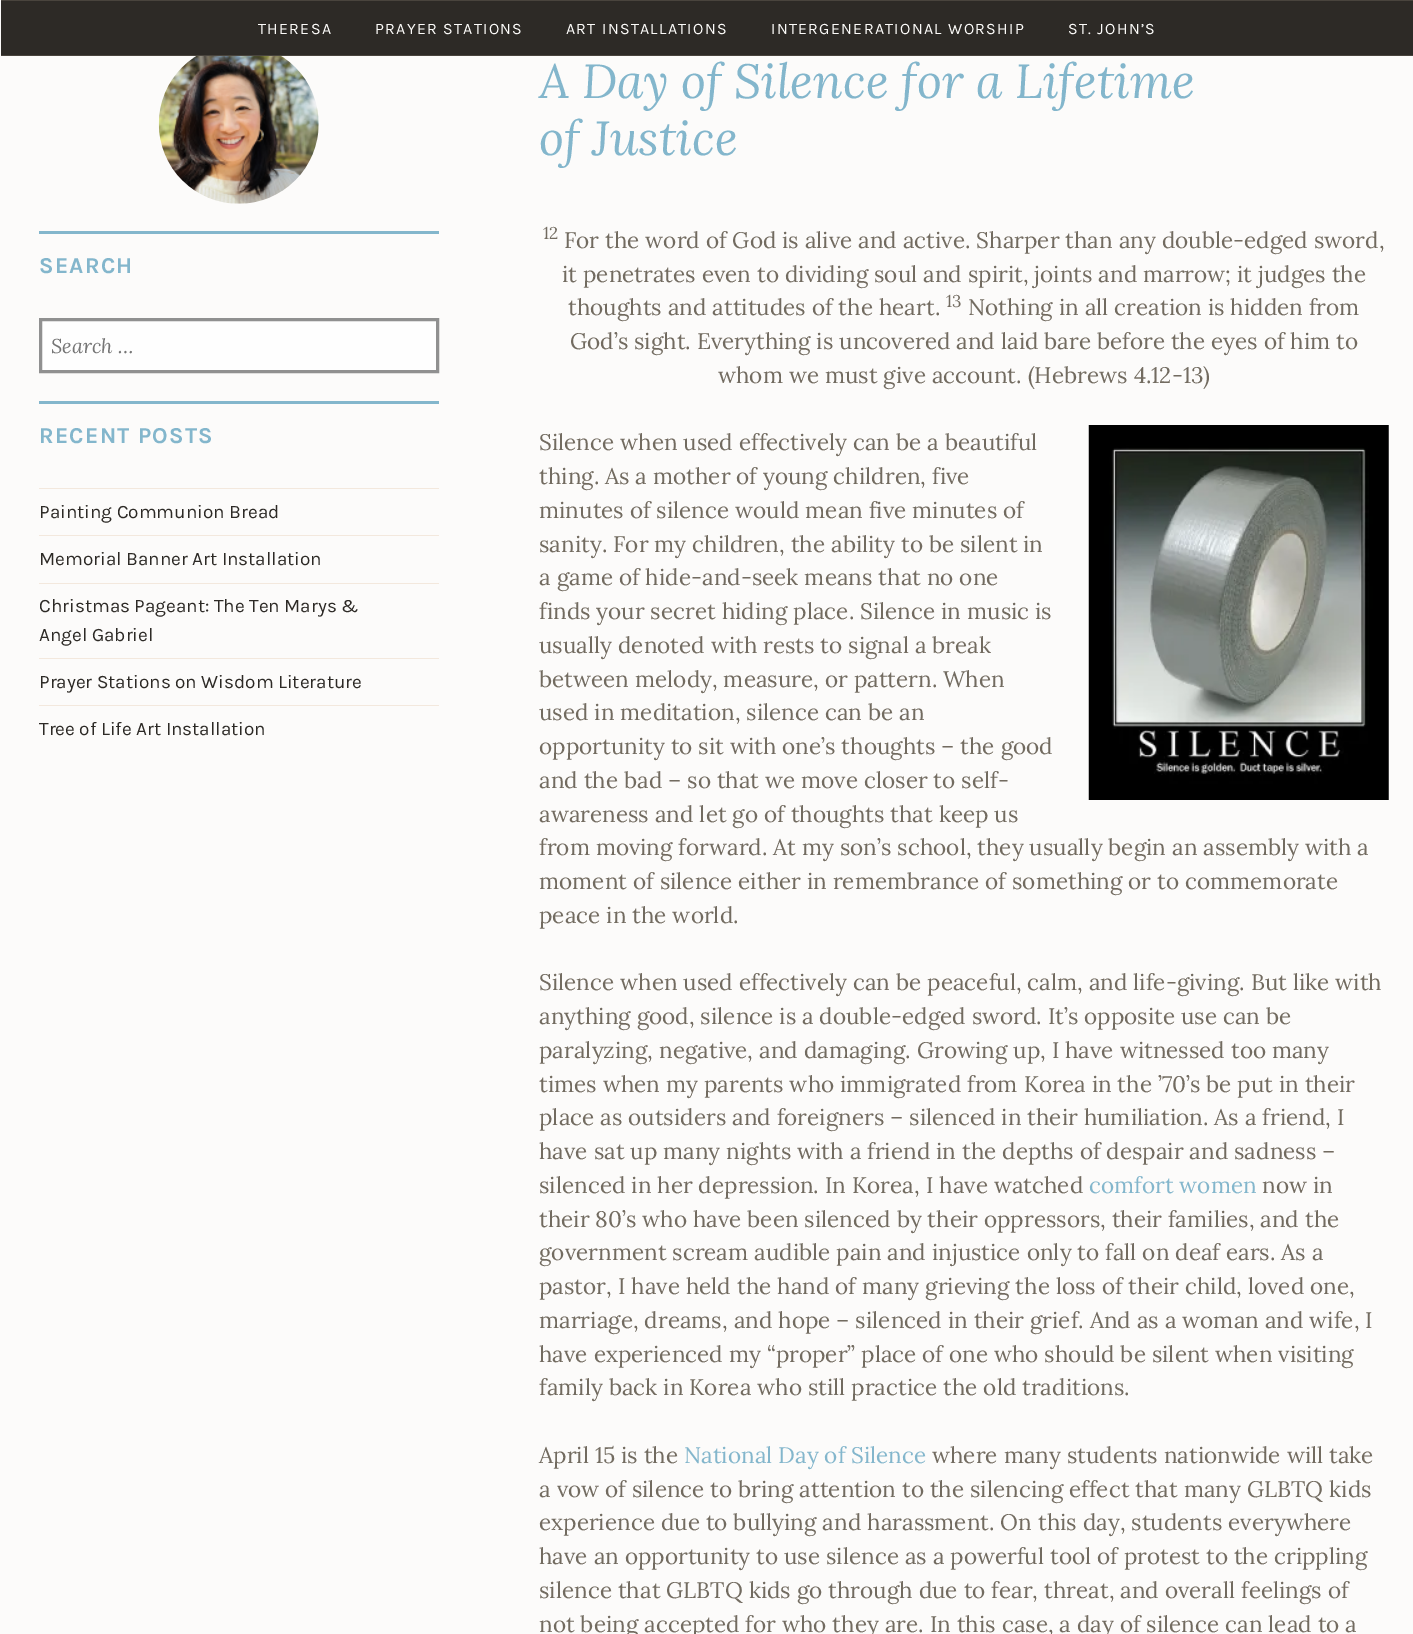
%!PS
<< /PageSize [1413 1634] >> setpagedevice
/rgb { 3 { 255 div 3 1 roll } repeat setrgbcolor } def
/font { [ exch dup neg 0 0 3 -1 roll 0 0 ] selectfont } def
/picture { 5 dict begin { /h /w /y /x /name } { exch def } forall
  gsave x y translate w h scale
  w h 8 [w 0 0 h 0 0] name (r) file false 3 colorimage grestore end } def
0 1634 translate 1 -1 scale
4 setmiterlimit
252 251 250 rgb
0 0 1413 1634 rectfill
[
  [1 1 1412 54 45 42 38]
  [1 0 1412 1 73 68 61]
  [1 55 1412 1 73 68 61]
] { aload pop rgb rectfill } forall
(img/1.rgb) 158 56 161 148 picture
131 182 204 rgb
39 231 400 3 rectfill
254 254 254 rgb
40.5 319.5 moveto 437.5 319.5 lineto 437.5 371.5 lineto 40.5 371.5 lineto closepath gsave fill grestore
144 144 144 rgb
3 setlinewidth
stroke
[
  [39 401 400 3 131 182 204]
  [39 488 400 1 243 232 221]
  [39 535 400 1 243 232 221]
  [39 583 400 1 243 232 221]
  [39 658 400 1 243 232 221]
  [39 705 400 1 243 232 221]
] { aload pop rgb rectfill } forall
(img/2.rgb) 1088 425 301 375 picture
/Karla-Regular 16 font
252 251 249 rgb
258 34 moveto 1.25 0 (THERESA) ashow
375 34 moveto 1.25 0 (PRAYER STATIONS) ashow
566 34 moveto 1.25 0 (ART INSTALLATIONS) ashow
771 34 moveto 1.25 0 (INTERGENERATIONAL WORSHIP) ashow
1068 34 moveto 1.25 0 (ST. JOHN’S) ashow
/Karla-Bold 22.75 font
131 182 204 rgb
39 273 moveto 1.25 0 (SEARCH) ashow
/Lora-Italic 20 font
117 117 117 rgb
51 353 moveto (Search …) show
/Karla-Bold 22.75 font
131 182 204 rgb
39 443 moveto 1.25 0 (RECENT POSTS) ashow
/Karla-Regular 19 font
45 42 38 rgb
[
  [(Painting Communion Bread) 39 518]
  [(Memorial Banner Art Installation) 39 565]
  [(Christmas Pageant: The Ten Marys &) 39 612]
  [(Angel Gabriel) 39 641]
  [(Prayer Stations on Wisdom Literature) 39 688]
  [(Tree of Life Art Installation) 39 735]
] { aload pop moveto show } forall
/Lora-Italic 48 font
131 182 204 rgb
539 98 moveto (A Day of Silence for a Lifetime) show
539 155 moveto (of Justice) show
/Lora-Regular 17 font
114 107 96 rgb
543 239 moveto (12) show
/Lora-Regular 22.5 font
[
  [(For the word of God is alive and active. Sharper than any double-edged sword,) 564 248]
  [(it penetrates even to dividing soul and spirit, joints and marrow; it judges the) 562 282]
  [(thoughts and attitudes of the heart.) 568 315]
] { aload pop moveto show } forall
/Lora-Regular 17 font
946 307 moveto (13) show
/Lora-Regular 22.5 font
[
  [(Nothing in all creation is hidden from) 968 315]
  [(God’s sight. Everything is uncovered and laid bare before the eyes of him to) 570 349]
  [(whom we must give account. \(Hebrews 4.12-13\)) 718 383]
  [(Silence when used effectively can be a beautiful) 539 450]
  [(thing. As a mother of young children, five) 539 484]
  [(minutes of silence would mean five minutes of) 539 518]
  [(sanity. For my children, the ability to be silent in) 539 552]
  [(a game of hide-and-seek means that no one) 539 585]
  [(finds your secret hiding place. Silence in music is) 539 619]
  [(usually denoted with rests to signal a break) 539 653]
  [(between melody, measure, or pattern. When) 539 687]
  [(used in meditation, silence can be an) 539 720]
  [(opportunity to sit with one’s thoughts – the good) 539 754]
  [(and the bad – so that we move closer to self-) 539 788]
  [(awareness and let go of thoughts that keep us) 539 822]
  [(from moving forward. At my son’s school, they usually begin an assembly with a) 539 855]
  [(moment of silence either in remembrance of something or to commemorate) 539 889]
  [(peace in the world.) 539 923]
  [(Silence when used effectively can be peaceful, calm, and life-giving. But like with) 539 990]
  [(anything good, silence is a double-edged sword. It’s opposite use can be) 539 1024]
  [(paralyzing, negative, and damaging. Growing up, I have witnessed too many) 539 1058]
  [(times when my parents who immigrated from Korea in the ’70’s be put in their) 539 1092]
  [(place as outsiders and foreigners – silenced in their humiliation. As a friend, I) 539 1125]
  [(have sat up many nights with a friend in the depths of despair and sadness –) 539 1159]
  [(silenced in her depression. In Korea, I have watched) 539 1193]
] { aload pop moveto show } forall
131 182 204 rgb
1089 1193 moveto (comfort women) show
114 107 96 rgb
[
  [(now in) 1262 1193]
  [(their 80’s who have been silenced by their oppressors, their families, and the) 539 1227]
  [(government scream audible pain and injustice only to fall on deaf ears. As a) 539 1260]
  [(pastor, I have held the hand of many grieving the loss of their child, loved one,) 539 1294]
  [(marriage, dreams, and hope – silenced in their grief. And as a woman and wife, I) 539 1328]
  [(have experienced my “proper” place of one who should be silent when visiting) 539 1362]
  [(family back in Korea who still practice the old traditions.) 539 1395]
  [(April 15 is the) 539 1463]
] { aload pop moveto show } forall
131 182 204 rgb
684 1463 moveto (National Day of Silence) show
114 107 96 rgb
[
  [(where many students nationwide will take) 932 1463]
  [(a vow of silence to bring attention to the silencing effect that many GLBTQ kids) 539 1497]
  [(experience due to bullying and harassment. On this day, students everywhere) 539 1530]
  [(have an opportunity to use silence as a powerful tool of protest to the crippling) 539 1564]
  [(silence that GLBTQ kids go through due to fear, threat, and overall feelings of) 539 1598]
  [(not being accepted for who they are. In this case, a day of silence can lead to a) 539 1632]
] { aload pop moveto show } forall
showpage
